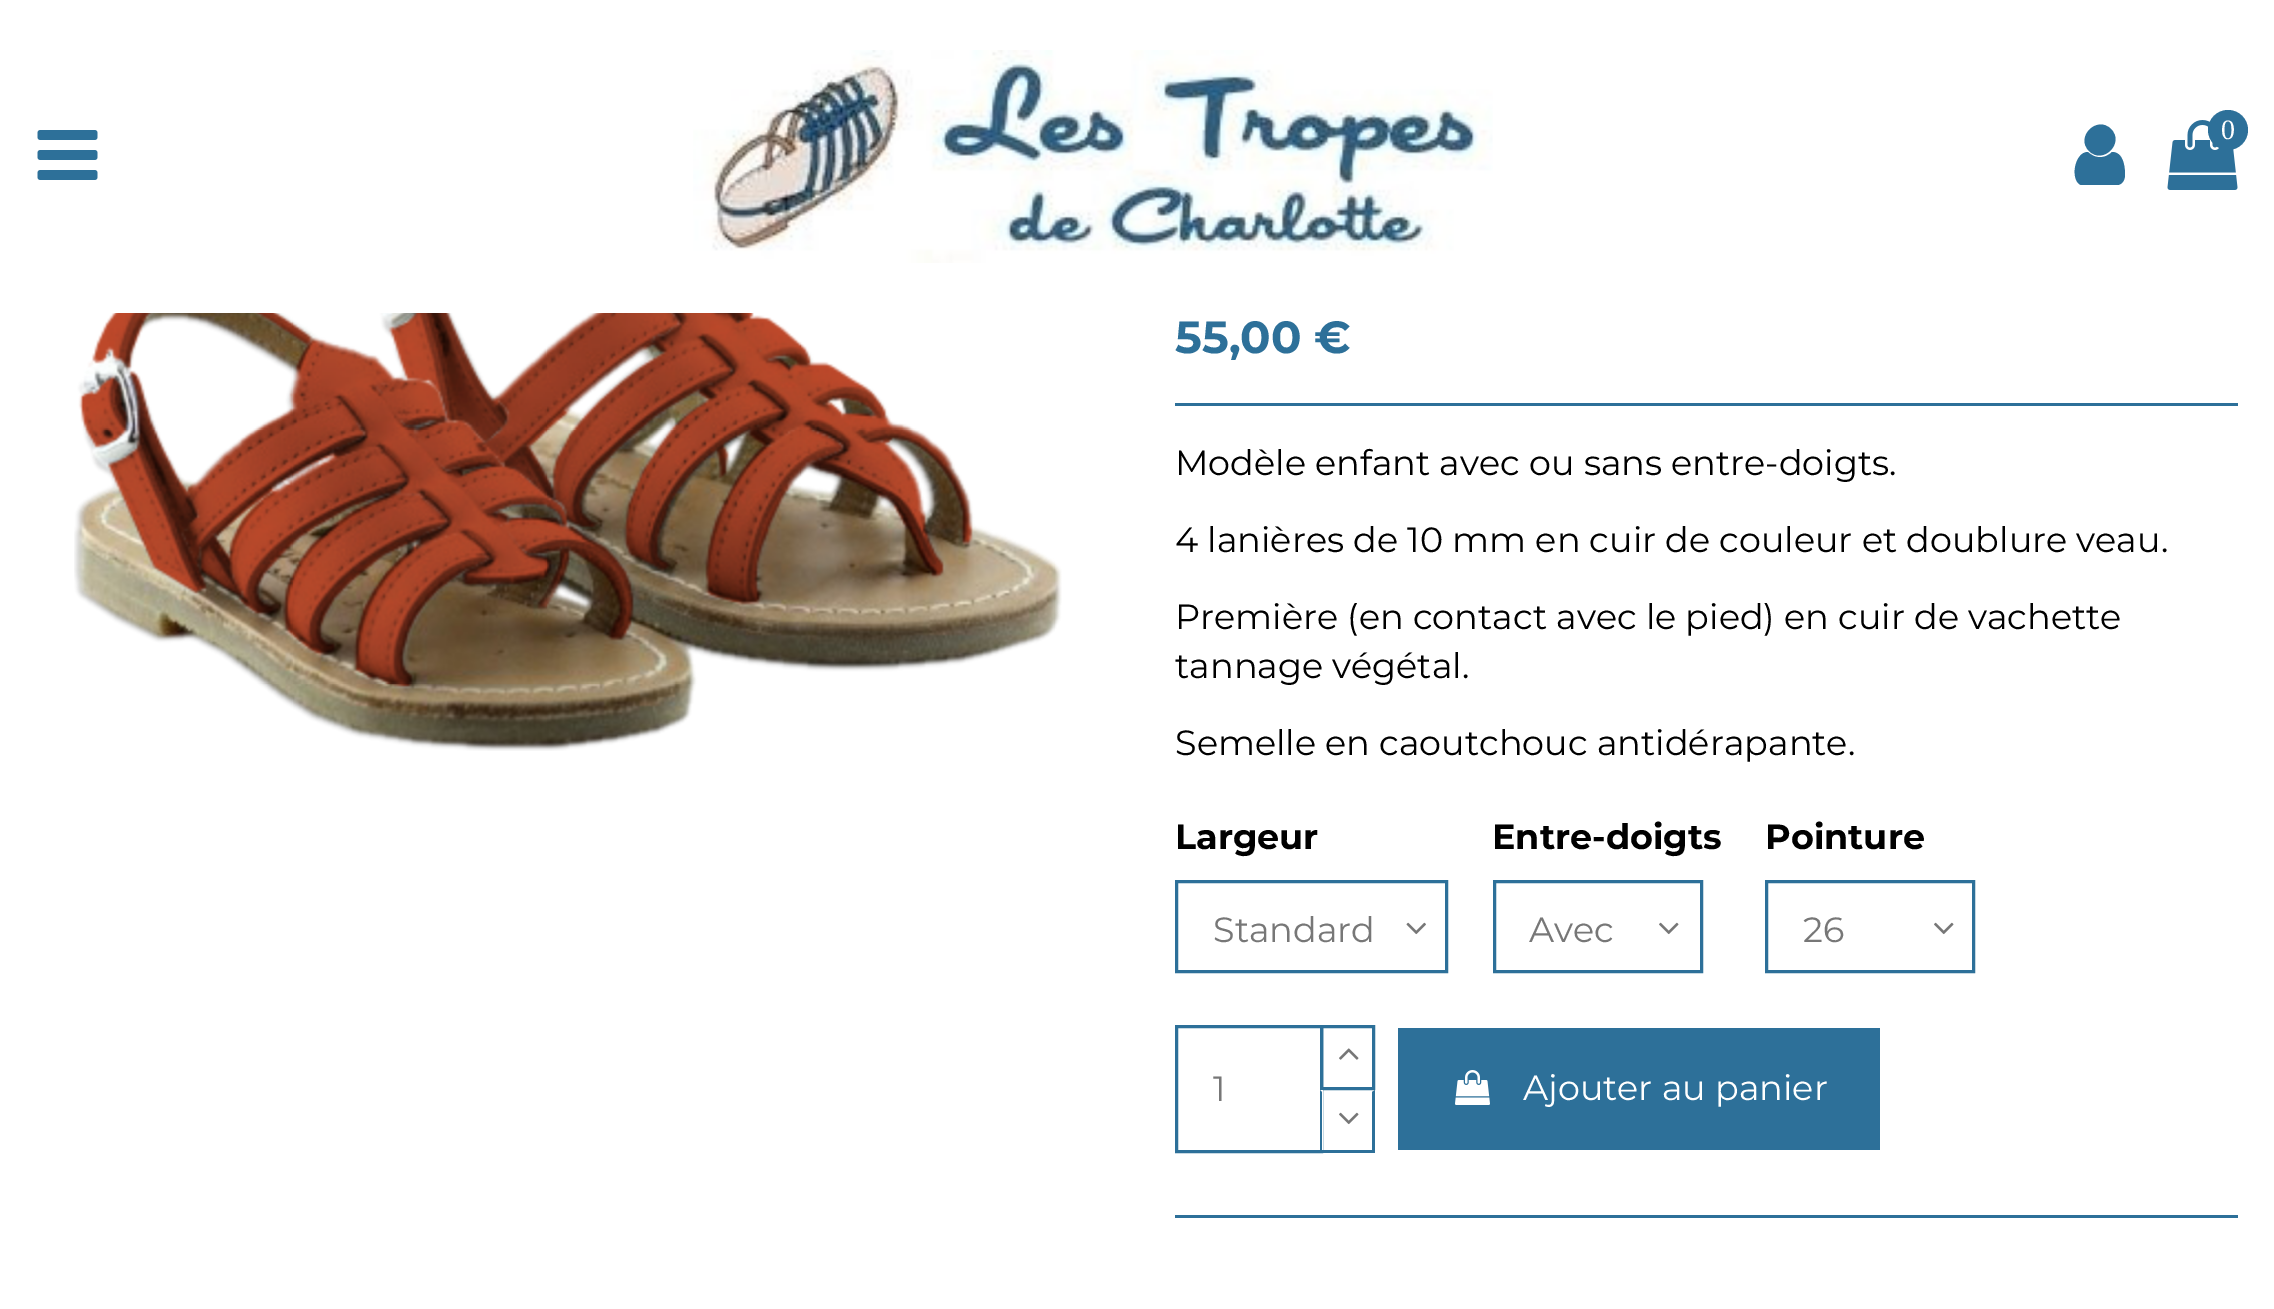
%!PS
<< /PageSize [2274 1309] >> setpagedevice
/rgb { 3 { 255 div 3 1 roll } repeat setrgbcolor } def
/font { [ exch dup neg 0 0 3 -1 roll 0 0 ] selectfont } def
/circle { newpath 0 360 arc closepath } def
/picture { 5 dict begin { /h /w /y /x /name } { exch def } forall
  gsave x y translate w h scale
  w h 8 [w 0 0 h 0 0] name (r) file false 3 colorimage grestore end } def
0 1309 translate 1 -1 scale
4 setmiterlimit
255 255 255 rgb
0 0 2274 1309 rectfill
(img/1.rgb) 37 130 61 50 picture
(img/2.rgb) 693 50 800 213 picture
45 112 153 rgb
2125 175 moveto 2125 179 2123 184 2118 185 curveto 2089 185 lineto 2081 185 lineto 2070 181 2074 152 2088 152 curveto 2095 159 2105 159 2112 152 curveto 2123 152 2125 166 2125 175 curveto closepath 2111 129 moveto 2125 143 2103 165 2089 151 curveto 2075 137 2097 115 2111 129 curveto closepath fill
(img/3.rgb) 2167 120 71 70 picture
2228 130 20 circle fill
(img/4.rgb) 74 313 988 438 picture
1175 403 1063 3 rectfill
(img/5.rgb) 1406 922 20 13 picture
3 setlinewidth
1176.5 881.5 270 90 rectstroke
(img/6.rgb) 1659 922 20 13 picture
1494.5 881.5 207 90 rectstroke
(img/6.rgb) 1934 922 20 13 picture
1766.5 881.5 207 90 rectstroke
1176.5 1026.5 145 125 rectstroke
1321.5 1026.5 52 62 rectstroke
(img/7.rgb) 1339 1048 20 12 picture
255 255 255 rgb
1320 1090 3 60 rectfill
45 112 153 rgb
1375 1090 moveto 1375 1152 lineto 1372 1150 lineto 1372 1092 lineto closepath fill
1320 1150 55 3 rectfill
1320 1152 moveto 1320 1090 lineto 1322 1092 lineto 1322 1150 lineto closepath fill
(img/6.rgb) 1339 1112 20 13 picture
1398 1028 482 122 rectfill
(img/8.rgb) 1455 1070 35 35 picture
1175 1215 1063 3 rectfill
/LiberationSerif-Regular 28 font
255 255 255 rgb
2221 139 moveto (0) show
/Montserrat-Bold 45 font
45 112 153 rgb
1175 353 moveto (55,00 €) show
/Montserrat-Regular 35 font
0 0 0 rgb
[
  [(Modèle enfant avec ou sans entre-doigts.) 1175 475]
  [(4 lanières de 10 mm en cuir de couleur et doublure veau.) 1175 552]
  [(Première \(en contact avec le pied\) en cuir de vachette) 1175 629]
  [(tannage végétal.) 1175 678]
  [(Semelle en caoutchouc antidérapante.) 1175 755]
] { aload pop moveto show } forall
/Montserrat-Bold 35 font
1175 849 moveto (Largeur) show
/Montserrat-Regular 35 font
119 119 119 rgb
1213 942 moveto (Standard) show
/Montserrat-Bold 35 font
0 0 0 rgb
1492 849 moveto (Entre-doigts) show
/Montserrat-Regular 35 font
119 119 119 rgb
1529 942 moveto (Avec) show
/Montserrat-Bold 35 font
0 0 0 rgb
1765 849 moveto (Pointure) show
/Montserrat-Regular 35 font
119 119 119 rgb
1803 942 moveto (26) show
gsave
1213 1068 72 45 rectclip
1213 1101 moveto (1) show
grestore
255 255 255 rgb
1523 1100 moveto (Ajouter au panier) show
showpage
